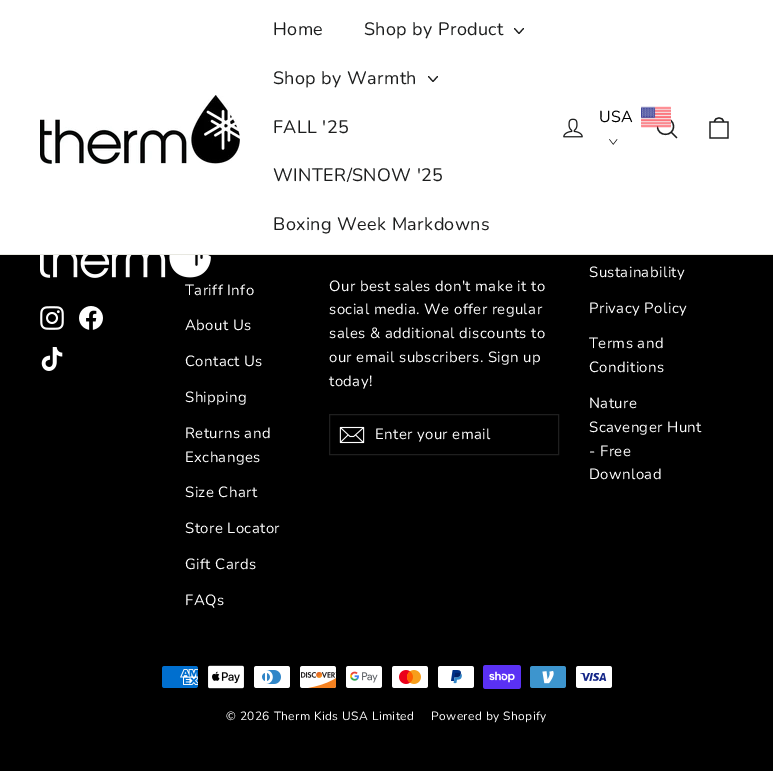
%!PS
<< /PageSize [773 771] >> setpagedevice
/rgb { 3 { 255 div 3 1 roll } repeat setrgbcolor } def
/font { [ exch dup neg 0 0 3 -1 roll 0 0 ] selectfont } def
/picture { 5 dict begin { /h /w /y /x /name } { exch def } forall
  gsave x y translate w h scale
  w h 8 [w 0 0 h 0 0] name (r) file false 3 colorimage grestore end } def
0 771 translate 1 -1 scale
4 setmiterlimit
0 0 0 rgb
0 0 773 771 rectfill
255 255 255 rgb
0 0 773 254 rectfill
232 232 225 rgb
0 254 773 1 rectfill
(img/1.rgb) 40 95 200 69 picture
28 29 29 rgb
1.1 setlinewidth
1 setlinecap
1 setlinejoin
514.5 28.5 moveto 519 33.5 lineto 523.5 28.5 lineto stroke
428.5 76.5 moveto 433 81.5 lineto 437.5 76.5 lineto stroke
(img/2.rgb) 563 118 20 20 picture
1.3 setlinewidth
673.5 126.5 moveto 673.5 137 657.5 137 657.5 126.5 curveto 657.5 116 673.5 116 673.5 126.5 curveto closepath 676.5 137.5 moveto 671.5 132.5 lineto stroke
(img/3.rgb) 641 106 30 22 picture
(img/4.rgb) 609 139 9 6 picture
710 122 moveto 728 122 lineto 728 138 lineto 710 138 lineto closepath 714.5 122 moveto 714.5 116.5 723.5 116.5 723.5 122 curveto stroke
(img/5.rgb) 40 255 171 23 picture
(img/6.rgb) 40 306 24 24 picture
(img/7.rgb) 79 306 24 24 picture
(img/8.rgb) 41 347 22 24 picture
31 31 31 rgb
1 setlinewidth
0 setlinecap
0 setlinejoin
329.5 414.5 229 40 rectstroke
(img/9.rgb) 339 426 26 18 picture
(img/10.rgb) 162 666 36 22 picture
(img/11.rgb) 208 665 36 24 picture
(img/12.rgb) 254 666 36 22 picture
(img/13.rgb) 300 666 37 22 picture
(img/14.rgb) 346 666 36 22 picture
(img/15.rgb) 392 666 36 22 picture
(img/16.rgb) 438 666 36 22 picture
(img/17.rgb) 483 665 38 24 picture
(img/18.rgb) 530 666 36 22 picture
(img/19.rgb) 576 666 36 22 picture
/Nunito-Regular 18 font
28 29 29 rgb
273 35 moveto 0.4 0 (Home) ashow
364 35 moveto 0.4 0 (Shop by Product) ashow
273 84 moveto 0.4 0 (Shop by Warmth) ashow
273 133 moveto 0.4 0 (FALL '25) ashow
273 181 moveto 0.4 0 (WINTER/SNOW '25) ashow
273 230 moveto 0.4 0 (Boxing Week Markdowns) ashow
/Nunito-Regular 16 font
0 0 0 rgb
599 122 moveto 0.4 0 (USA) ashow
/Nunito-Regular 14.9 font
255 255 255 rgb
185 295 moveto 0.4 0 (Tariff Info) ashow
185 330 moveto 0.4 0 (About Us) ashow
185 366 moveto 0.4 0 (Contact Us) ashow
185 402 moveto 0.4 0 (Shipping) ashow
185 438 moveto 0.4 0 (Returns and) ashow
185 462 moveto 0.4 0 (Exchanges) ashow
185 497 moveto 0.4 0 (Size Chart) ashow
185 533 moveto 0.4 0 (Store Locator) ashow
185 569 moveto 0.4 0 (Gift Cards) ashow
185 605 moveto 0.4 0 (FAQs) ashow
329 291 moveto 0.4 0 (Our best sales don't make it to) ashow
329 314 moveto 0.4 0 (social media. We offer regular) ashow
329 338 moveto 0.4 0 (sales & additional discounts to) ashow
329 362 moveto 0.4 0 (our email subscribers. Sign up) ashow
329 386 moveto 0.4 0 (today!) ashow
375 439 moveto 0.4 0 (Enter your email) ashow
589 277 moveto 0.4 0 (Sustainability) ashow
589 313 moveto 0.4 0 (Privacy Policy) ashow
589 348 moveto 0.4 0 (Terms and) ashow
589 372 moveto 0.4 0 (Conditions) ashow
589 408 moveto 0.4 0 (Nature) ashow
589 432 moveto 0.4 0 (Scavenger Hunt) ashow
589 456 moveto 0.4 0 (- Free) ashow
589 479 moveto 0.4 0 (Download) ashow
/Nunito-Regular 12 font
226 720 moveto 0.4 0 (© 2026 Therm Kids USA Limited) ashow
431 720 moveto 0.4 0 (Powered by Shopify) ashow
showpage
